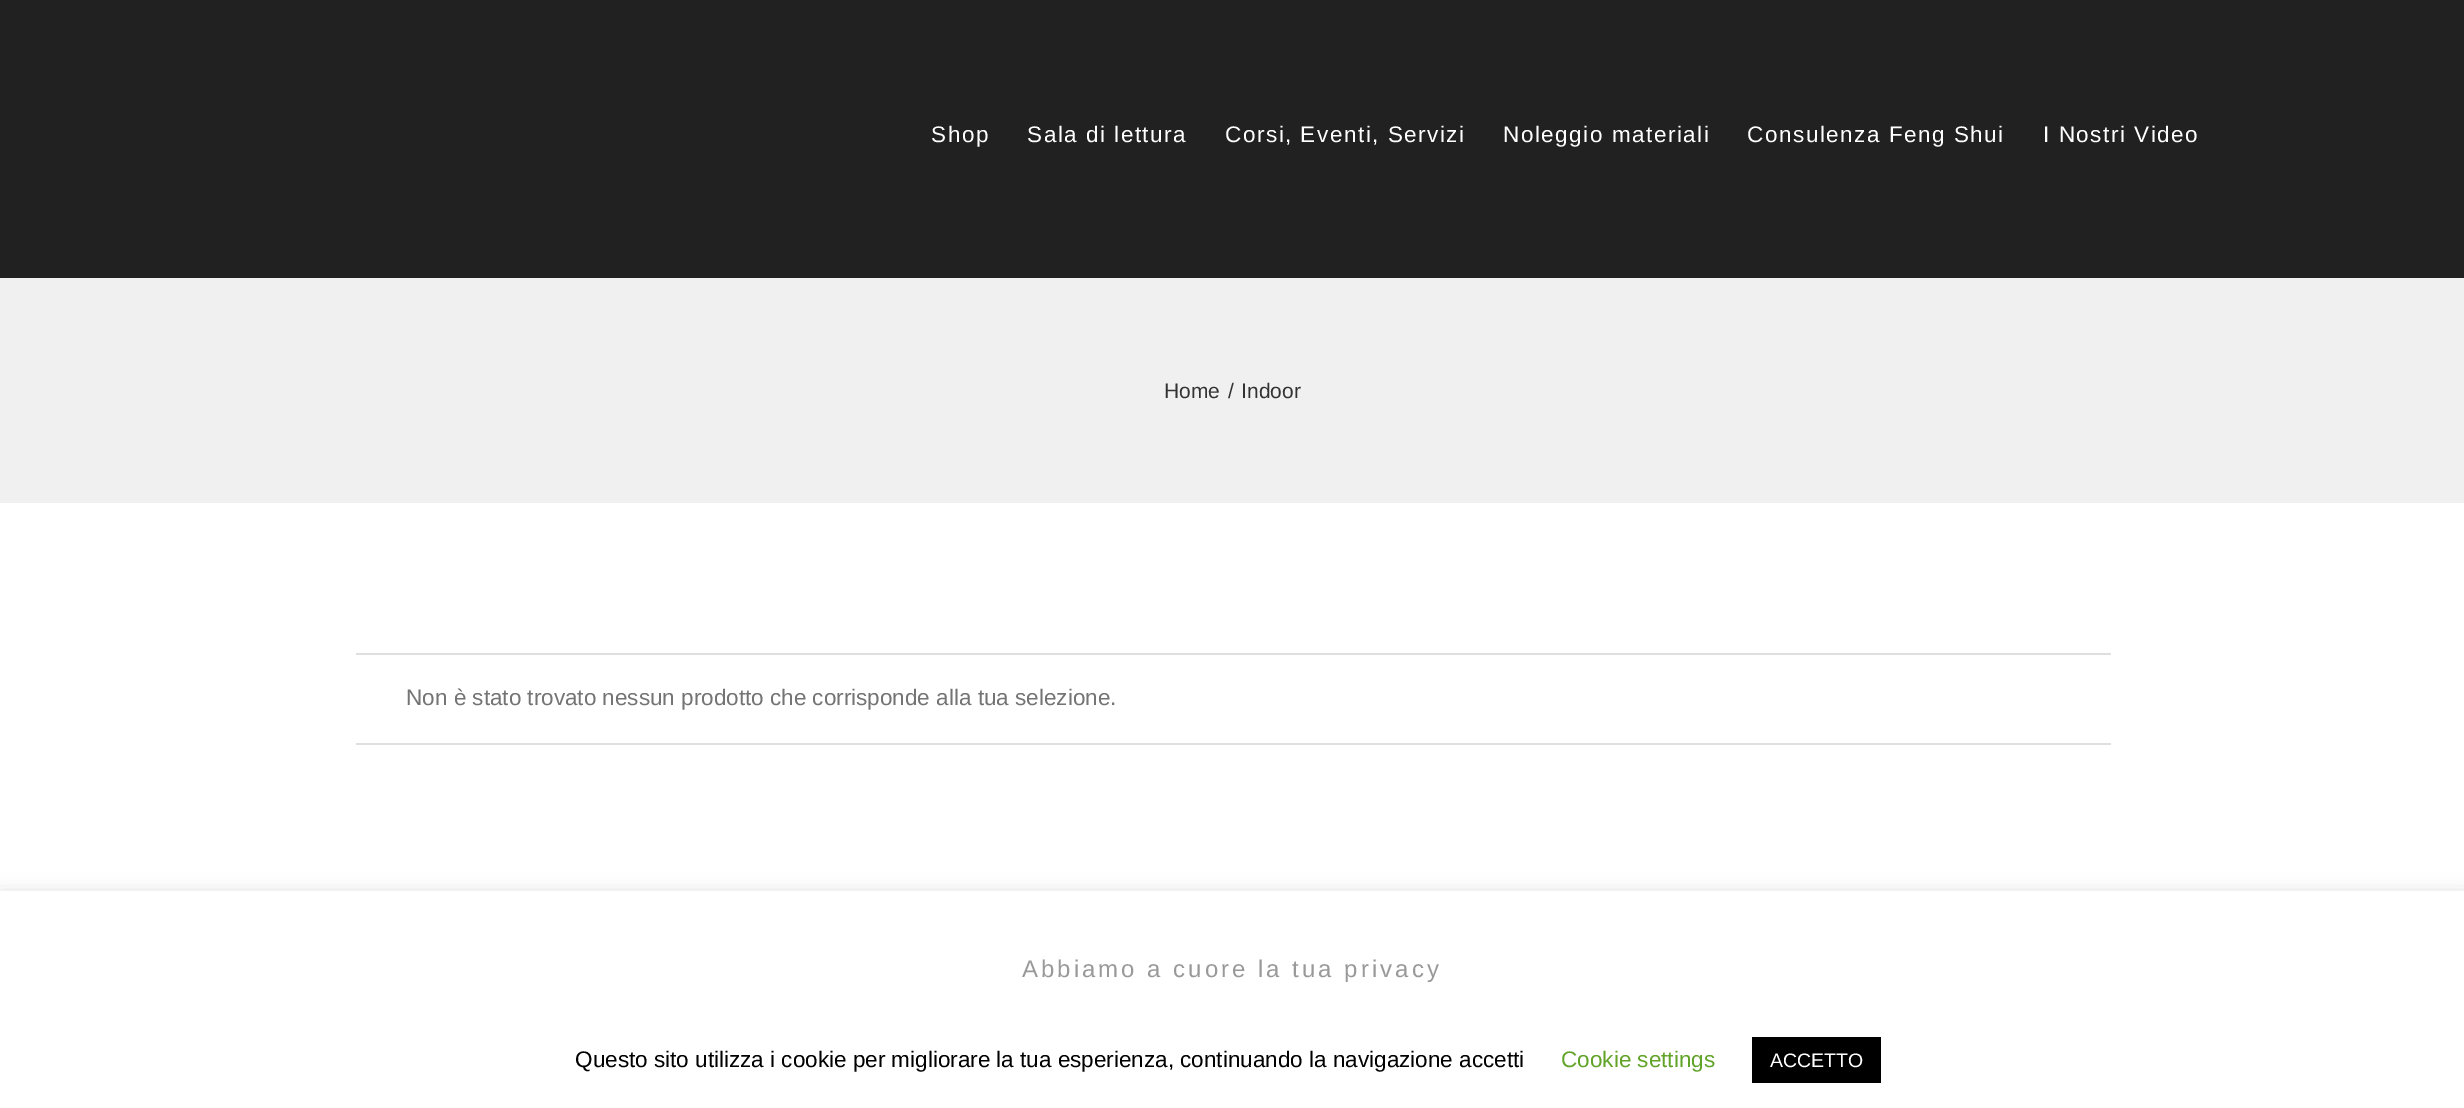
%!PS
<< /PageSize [2464 1108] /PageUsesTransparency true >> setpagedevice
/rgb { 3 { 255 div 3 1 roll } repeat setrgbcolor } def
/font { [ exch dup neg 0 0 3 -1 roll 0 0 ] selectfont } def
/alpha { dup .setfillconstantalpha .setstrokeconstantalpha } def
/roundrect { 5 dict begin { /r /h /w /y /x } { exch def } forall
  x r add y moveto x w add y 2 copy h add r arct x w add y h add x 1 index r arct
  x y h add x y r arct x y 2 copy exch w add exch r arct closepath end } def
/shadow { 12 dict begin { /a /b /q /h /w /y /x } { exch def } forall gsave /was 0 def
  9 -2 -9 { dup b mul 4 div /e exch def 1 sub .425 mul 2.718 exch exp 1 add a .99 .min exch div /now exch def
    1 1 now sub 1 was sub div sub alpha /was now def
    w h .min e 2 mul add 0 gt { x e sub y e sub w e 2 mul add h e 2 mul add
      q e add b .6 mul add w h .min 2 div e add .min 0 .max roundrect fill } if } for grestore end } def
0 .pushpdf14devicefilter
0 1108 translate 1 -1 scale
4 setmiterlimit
255 255 255 rgb
0 0 2464 1108 rectfill
[
  [0 0 2464 278 33 33 33]
  [0 278 2464 225 240 240 240]
  [356 653 1755 2 224 222 222]
  [356 743 1755 2 224 222 222]
] { aload pop rgb rectfill } forall
172 171 171 rgb
0 890 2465 217 0 7.5 0.3 shadow
255 255 255 rgb
0 891 2464 217 rectfill
0 0 0 rgb
1752 1037 129 46 rectfill
/LiberationSans-Regular 22.5 font
255 255 255 rgb
931 142 moveto 1.5 0 (Shop) ashow
1027 142 moveto 1.5 0 (Sala di lettura) ashow
1225 142 moveto 1.5 0 (Corsi, Eventi, Servizi) ashow
1503 142 moveto 1.5 0 (Noleggio materiali) ashow
1747 142 moveto 1.5 0 (Consulenza Feng Shui) ashow
2043 142 moveto 1.5 0 (I Nostri Video) ashow
/LiberationSans-Regular 21 font
51 51 51 rgb
[
  [(Home) 1164 398]
  [(/) 1228 398]
  [(Indoor) 1241 398]
] { aload pop moveto show } forall
/LiberationSans-Regular 22.5 font
116 116 116 rgb
406 705 moveto (Non è stato trovato nessun prodotto che corrisponde alla tua selezione.) show
/LiberationSans-Regular 24 font
153 153 153 rgb
1022 977 moveto 3 0 (Abbiamo a cuore la tua privacy) ashow
/LiberationSans-Regular 22.5 font
0 0 0 rgb
575 1067 moveto (Questo sito utilizza i cookie per migliorare la tua esperienza, continuando la navigazione accetti) show
98 163 41 rgb
1561 1067 moveto (Cookie settings) show
/LiberationSans-Regular 19.5 font
255 255 255 rgb
1770 1067 moveto (ACCETTO) show
.poppdf14devicefilter showpage
